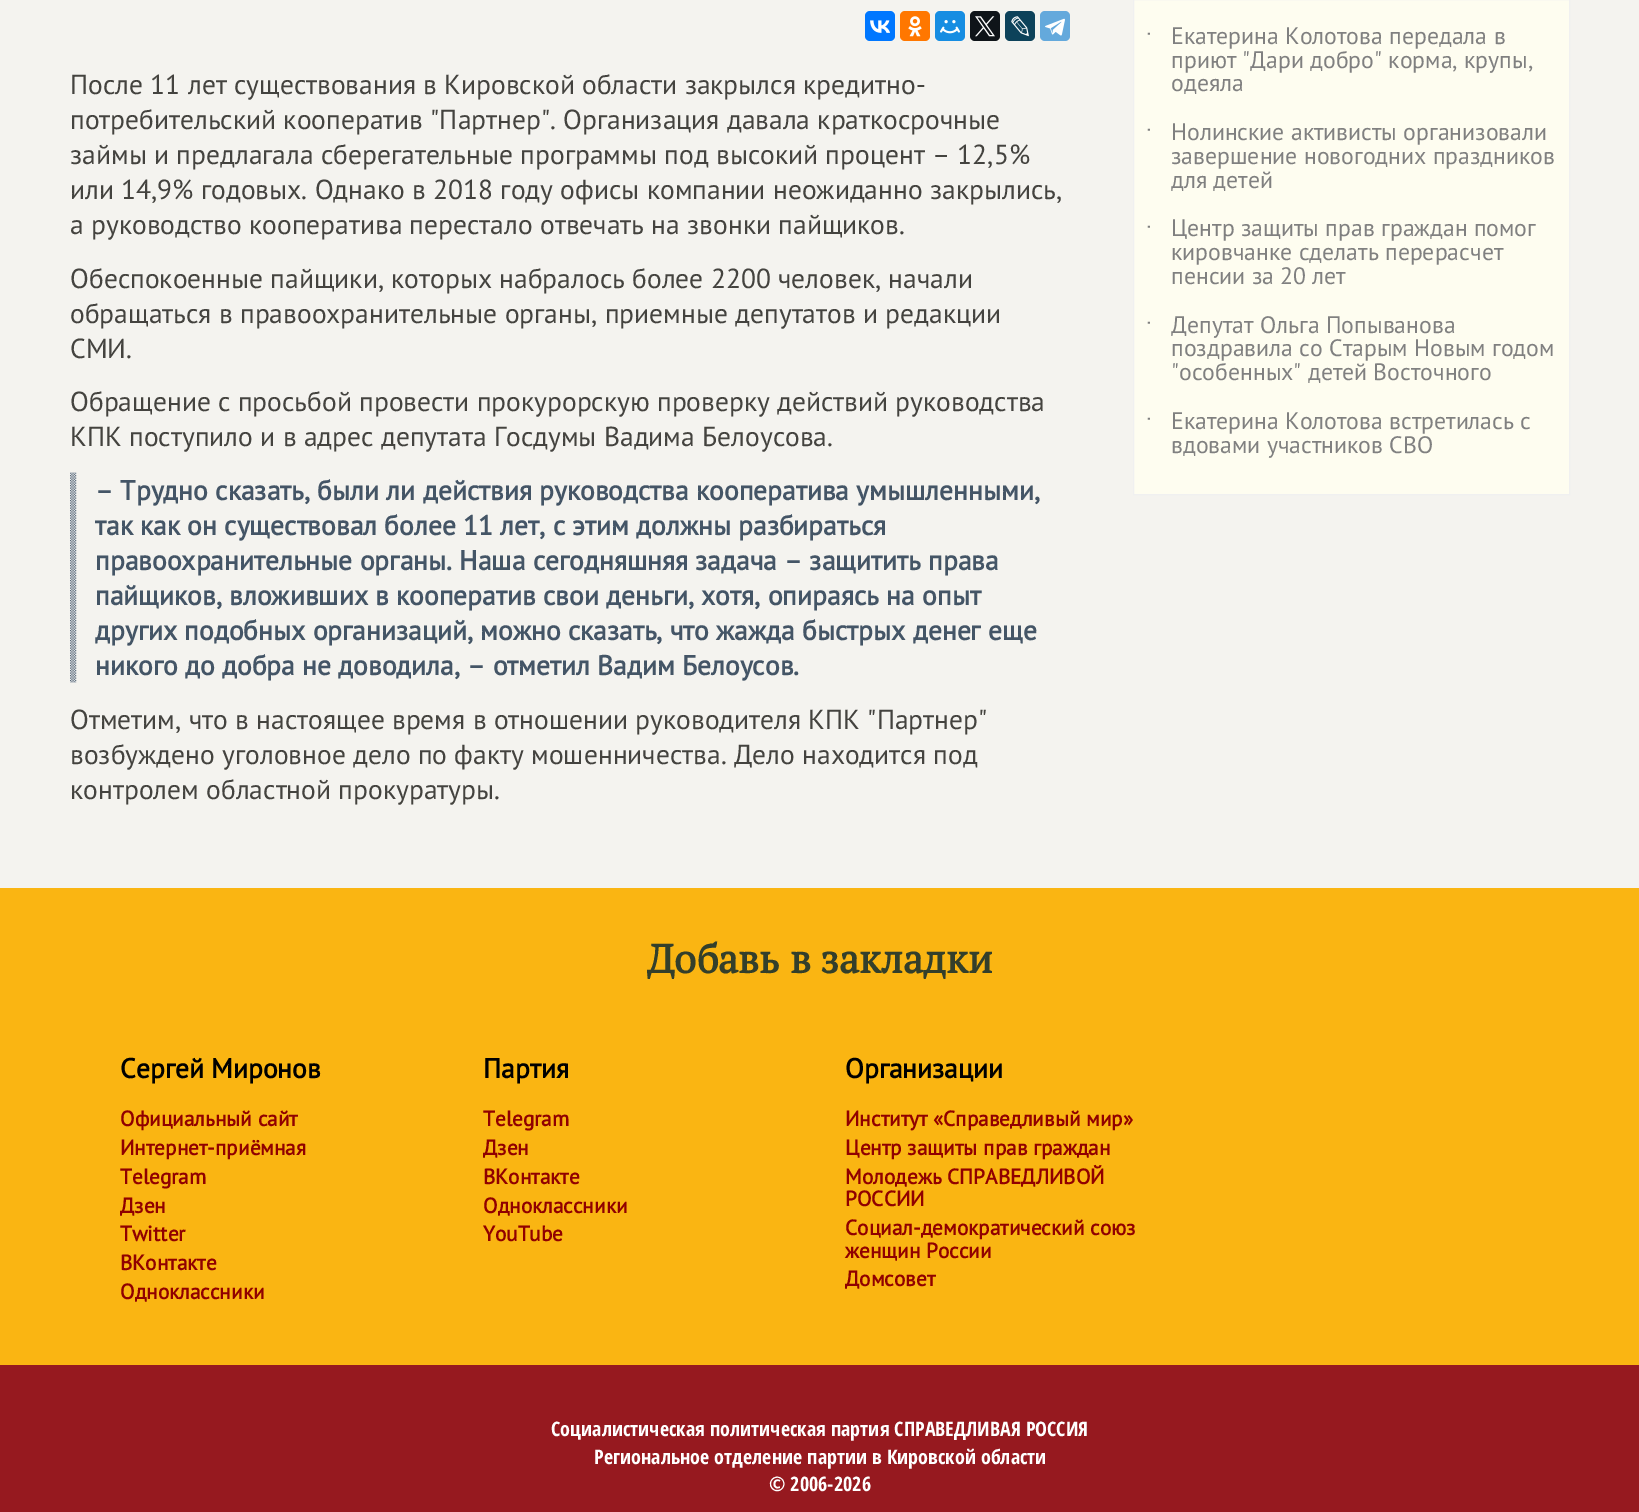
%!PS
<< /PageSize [1639 1512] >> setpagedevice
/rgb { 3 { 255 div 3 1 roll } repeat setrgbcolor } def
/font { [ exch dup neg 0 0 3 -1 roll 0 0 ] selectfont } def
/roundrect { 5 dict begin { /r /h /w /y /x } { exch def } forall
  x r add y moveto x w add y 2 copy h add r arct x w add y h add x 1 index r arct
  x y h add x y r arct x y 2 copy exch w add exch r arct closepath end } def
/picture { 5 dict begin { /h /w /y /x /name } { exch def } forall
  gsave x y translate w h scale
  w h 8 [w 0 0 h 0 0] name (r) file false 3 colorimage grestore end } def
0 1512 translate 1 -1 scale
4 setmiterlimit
244 243 239 rgb
0 0 1639 1512 rectfill
0 119 255 rgb
865 11 30 30 5 roundrect fill
(img/1.rgb) 870 20 20 13 picture
255 119 0 rgb
900 11 30 30 5 roundrect fill
(img/2.rgb) 908 16 14 21 picture
22 141 226 rgb
935 11 30 30 5 roundrect fill
(img/3.rgb) 940 20 20 14 picture
15 20 25 rgb
970 11 30 30 5 roundrect fill
(img/4.rgb) 975 16 20 21 picture
13 66 90 rgb
1005 11 30 30 5 roundrect fill
(img/5.rgb) 1011 16 18 21 picture
100 169 220 rgb
1040 11 30 30 5 roundrect fill
(img/6.rgb) 1045 18 20 18 picture
(img/7.rgb) 70 472 7 211 picture
254 253 240 rgb
1133.5 -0.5 moveto 1569.5 -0.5 lineto 1569.5 494.5 lineto 1133.5 494.5 lineto closepath gsave fill grestore
240 240 240 rgb
stroke
250 181 18 rgb
0 888 1639 477 rectfill
150 25 31 rgb
0 1365 1639 147 rectfill
/PTSans-Regular 27.5 font
68 67 63 rgb
[
  [(После 11 лет существования в Кировской области закрылся кредитно-) 70 94]
  [(потребительский кооператив "Партнер". Организация давала краткосрочные) 70 129]
  [(займы и предлагала сберегательные программы под высокий процент – 12,5%) 70 164]
  [(или 14,9% годовых. Однако в 2018 году офисы компании неожиданно закрылись,) 70 199]
  [(а руководство кооператива перестало отвечать на звонки пайщиков.) 70 234]
  [(Обеспокоенные пайщики, которых набралось более 2200 человек, начали) 70 288]
  [(обращаться в правоохранительные органы, приемные депутатов и редакции) 70 323]
  [(СМИ.) 70 358]
  [(Обращение с просьбой провести прокурорскую проверку действий руководства) 70 411]
  [(КПК поступило и в адрес депутата Госдумы Вадима Белоусова.) 70 446]
] { aload pop moveto show } forall
/PTSans-Bold 27.5 font
68 85 102 rgb
[
  [(– Трудно сказать, были ли действия руководства кооператива умышленными,) 95 500]
  [(так как он существовал более 11 лет, с этим должны разбираться) 95 535]
  [(правоохранительные органы. Наша сегодняшняя задача – защитить права) 95 570]
  [(пайщиков, вложивших в кооператив свои деньги, хотя, опираясь на опыт) 95 605]
  [(других подобных организаций, можно сказать, что жажда быстрых денег еще) 95 640]
  [(никого до добра не доводила, – отметил Вадим Белоусов.) 95 675]
] { aload pop moveto show } forall
/PTSans-Regular 27.5 font
68 67 63 rgb
[
  [(Отметим, что в настоящее время в отношении руководителя КПК "Партнер") 70 729]
  [(возбуждено уголовное дело по факту мошенничества. Дело находится под) 70 764]
  [(контролем областной прокуратуры.) 70 799]
] { aload pop moveto show } forall
/LiberationSans-Regular 23.75 font
128 128 128 rgb
1146 50 moveto (˙) show
/PTSans-Regular 23.75 font
[
  [(Екатерина Колотова передала в) 1171 44]
  [(приют "Дари добро" корма, крупы,) 1171 68]
  [(одеяла) 1171 91]
] { aload pop moveto show } forall
/LiberationSans-Regular 23.75 font
1146 146 moveto (˙) show
/PTSans-Regular 23.75 font
[
  [(Нолинские активисты организовали) 1171 140]
  [(завершение новогодних праздников) 1171 164]
  [(для детей) 1171 188]
] { aload pop moveto show } forall
/LiberationSans-Regular 23.75 font
1146 243 moveto (˙) show
/PTSans-Regular 23.75 font
[
  [(Центр защиты прав граждан помог) 1171 236]
  [(кировчанке сделать перерасчет) 1171 260]
  [(пенсии за 20 лет) 1171 284]
] { aload pop moveto show } forall
/LiberationSans-Regular 23.75 font
1146 339 moveto (˙) show
/PTSans-Regular 23.75 font
[
  [(Депутат Ольга Попыванова) 1171 333]
  [(поздравила со Старым Новым годом) 1171 356]
  [("особенных" детей Восточного) 1171 380]
] { aload pop moveto show } forall
/LiberationSans-Regular 23.75 font
1146 435 moveto (˙) show
/PTSans-Regular 23.75 font
1171 429 moveto (Екатерина Колотова встретилась с) show
1171 453 moveto (вдовами участников СВО) show
/PTSerif-Bold 40 font
51 63 43 rgb
647 973 moveto (Добавь в закладки) show
/PTSans-Bold 27.5 font
0 0 0 rgb
120 1078 moveto (Сергей Миронов) show
/PTSans-Bold 21.25 font
144 0 0 rgb
[
  [(Официальный сайт) 120 1126]
  [(Интернет-приёмная) 120 1155]
  [(Telegram) 120 1184]
  [(Дзен) 120 1213]
  [(Twitter) 120 1241]
  [(ВКонтакте) 120 1270]
  [(Одноклассники) 120 1299]
] { aload pop moveto show } forall
/PTSans-Bold 27.5 font
0 0 0 rgb
483 1078 moveto (Партия) show
/PTSans-Bold 21.25 font
144 0 0 rgb
483 1126 moveto (Telegram) show
gsave
483 1028 312 230 rectclip
483 1155 moveto (Дзен) show
grestore
[
  [(ВКонтакте) 483 1184]
  [(Одноклассники) 483 1213]
  [(YouTube) 483 1241]
] { aload pop moveto show } forall
/PTSans-Bold 27.5 font
0 0 0 rgb
845 1078 moveto (Организации) show
/PTSans-Bold 21.25 font
144 0 0 rgb
[
  [(Институт «Справедливый мир») 845 1126]
  [(Центр защиты прав граждан) 845 1155]
  [(Молодежь СПРАВЕДЛИВОЙ) 845 1184]
  [(РОССИИ) 845 1206]
  [(Социал-демократический союз) 845 1235]
  [(женщин России) 845 1258]
  [(Домсовет) 845 1286]
] { aload pop moveto show } forall
/OpenSansCondensed-Bold 20 font
255 255 255 rgb
[
  [(Социалистическая политическая партия СПРАВЕДЛИВАЯ РОССИЯ) 551 1436]
  [(Региональное отделение партии в Кировской области) 594 1464]
  [(© 2006-2026) 769 1491]
] { aload pop moveto show } forall
showpage
